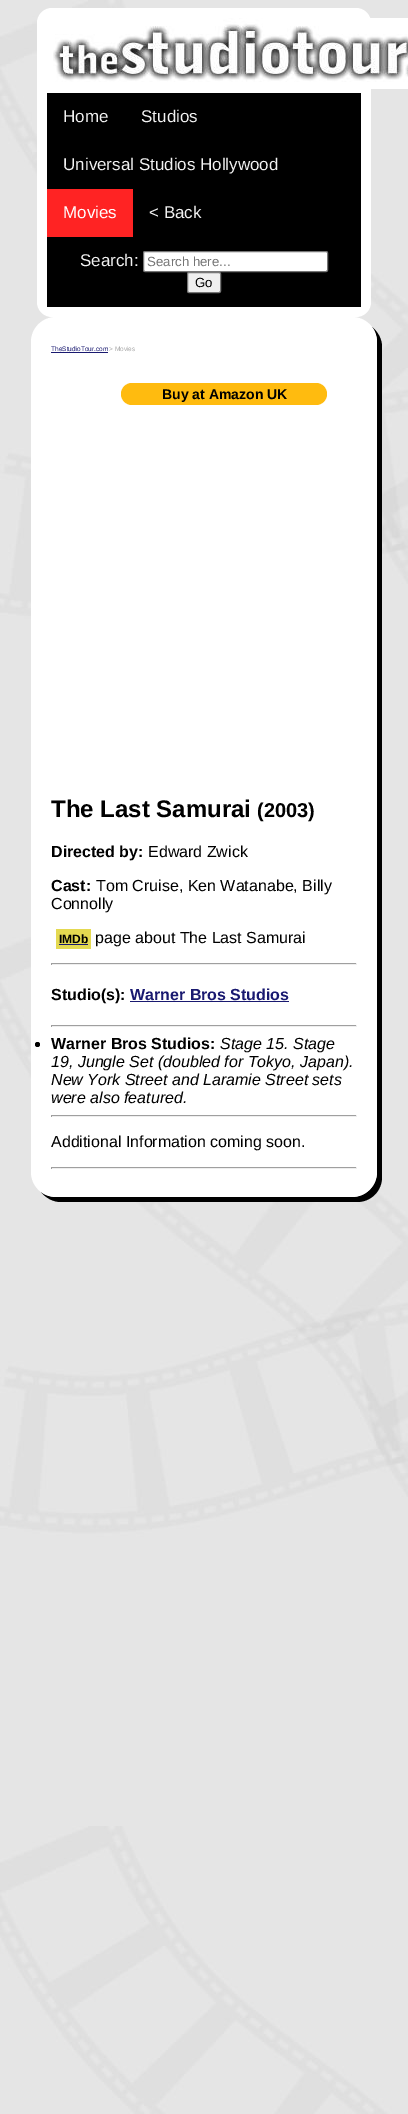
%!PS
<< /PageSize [408 2114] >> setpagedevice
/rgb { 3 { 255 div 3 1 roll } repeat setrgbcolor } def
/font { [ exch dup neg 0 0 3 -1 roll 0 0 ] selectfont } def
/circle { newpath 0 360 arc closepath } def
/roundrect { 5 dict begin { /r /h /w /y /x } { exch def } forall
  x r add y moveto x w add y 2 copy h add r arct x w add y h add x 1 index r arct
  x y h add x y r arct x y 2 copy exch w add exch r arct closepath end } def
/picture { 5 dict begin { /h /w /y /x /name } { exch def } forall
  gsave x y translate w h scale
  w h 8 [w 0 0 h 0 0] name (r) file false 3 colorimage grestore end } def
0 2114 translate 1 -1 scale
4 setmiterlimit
255 255 255 rgb
0 0 408 2114 rectfill
(img/1.rgb) 0 0 408 2114 picture
37 8 334 309 15 roundrect fill
(img/2.rgb) 53 18 355 71 picture
0 0 0 rgb
47 93 314 214 rectfill
255 35 35 rgb
47 189 86 48 rectfill
255 255 255 rgb
143.5 251.5 184 20 1.5 roundrect gsave fill grestore
118 118 118 rgb
stroke
239 239 239 rgb
187.5 272.5 33 20 1.5 roundrect gsave fill grestore
118 118 118 rgb
stroke
0 0 0 rgb
41 1192 moveto 46 1198 53 1202 61 1202 curveto 357 1202 lineto 371 1202 382 1191 382 1177 curveto 382 347 lineto 382 339 378 332 372 327 curveto 375 331 377 336 377 342 curveto 377 1172 lineto 377 1186 366 1197 352 1197 curveto 56 1197 lineto 50 1197 45 1195 41 1192 curveto closepath fill
255 255 255 rgb
31 317 346 880 25 roundrect fill
25 25 112 rgb
51 352 57 1 rectfill
255 187 15 rgb
121 383 206 22 11 roundrect fill
[
  [56 929 35 20 228 217 81]
  [59 944 29 1 25 25 112]
  [51 963 306 1 159 159 159]
  [356 963 1 2 238 238 238]
  [51 964 306 1 238 238 238]
  [51 963 1 2 159 159 159]
  [130 1001 159 1 25 25 112]
  [51 1025 306 1 159 159 159]
  [356 1025 1 2 238 238 238]
  [51 1026 306 1 238 238 238]
  [51 1025 1 2 159 159 159]
] { aload pop rgb rectfill } forall
0 0 0 rgb
37.5 1044.5 2.5 circle fill
[
  [51 1115 306 1 159 159 159]
  [356 1115 1 2 238 238 238]
  [51 1116 306 1 238 238 238]
  [51 1115 1 2 159 159 159]
  [51 1167 306 1 159 159 159]
  [356 1167 1 2 238 238 238]
  [51 1168 306 1 238 238 238]
  [51 1167 1 2 159 159 159]
] { aload pop rgb rectfill } forall
/LiberationSans-Regular 17 font
242 242 242 rgb
[
  [(Home) 63 122]
  [(Studios) 141 122]
  [(Universal Studios Hollywood) 63 170]
] { aload pop moveto show } forall
255 255 255 rgb
63 218 moveto (Movies) show
242 242 242 rgb
149 218 moveto (< Back) show
80 266 moveto (Search:) show
/LiberationSans-Regular 13.25 font
117 117 117 rgb
147 266 moveto (Search here...) show
0 0 0 rgb
195 287 moveto (Go) show
/LiberationSans-Regular 6.5 font
25 25 112 rgb
51 351 moveto (TheStudioTour.com) show
169 169 169 rgb
109 351 moveto (> Movies) show
/LiberationSans-Bold 14 font
0 0 0 rgb
162 399 moveto (Buy at Amazon UK) show
/LiberationSans-Bold 24 font
51 817 moveto (The Last Samurai) show
/LiberationSans-Bold 20 font
257 817 moveto (\(2003\)) show
/LiberationSans-Bold 16 font
51 857 moveto (Directed by:) show
/LiberationSans-Regular 16 font
148 857 moveto (Edward Zwick) show
/LiberationSans-Bold 16 font
51 891 moveto (Cast:) show
/LiberationSans-Regular 16 font
96 891 moveto (Tom Cruise, Ken Watanabe, Billy) show
51 909 moveto (Connolly) show
/LiberationSans-Bold 12 font
59 943 moveto (IMDb) show
/LiberationSans-Regular 16 font
95 943 moveto (page about The Last Samurai) show
/LiberationSans-Bold 16 font
51 1000 moveto (Studio\(s\):) show
25 25 112 rgb
130 1000 moveto (Warner Bros Studios) show
0 0 0 rgb
51 1049 moveto (Warner Bros Studios:) show
/LiberationSans-Italic 16 font
[
  [(Stage 15. Stage) 220 1049]
  [(19, Jungle Set \(doubled for Tokyo, Japan\).) 51 1067]
  [(New York Street and Laramie Street sets) 51 1085]
  [(were also featured.) 51 1103]
] { aload pop moveto show } forall
/LiberationSans-Regular 16 font
51 1147 moveto (Additional Information coming soon.) show
showpage
